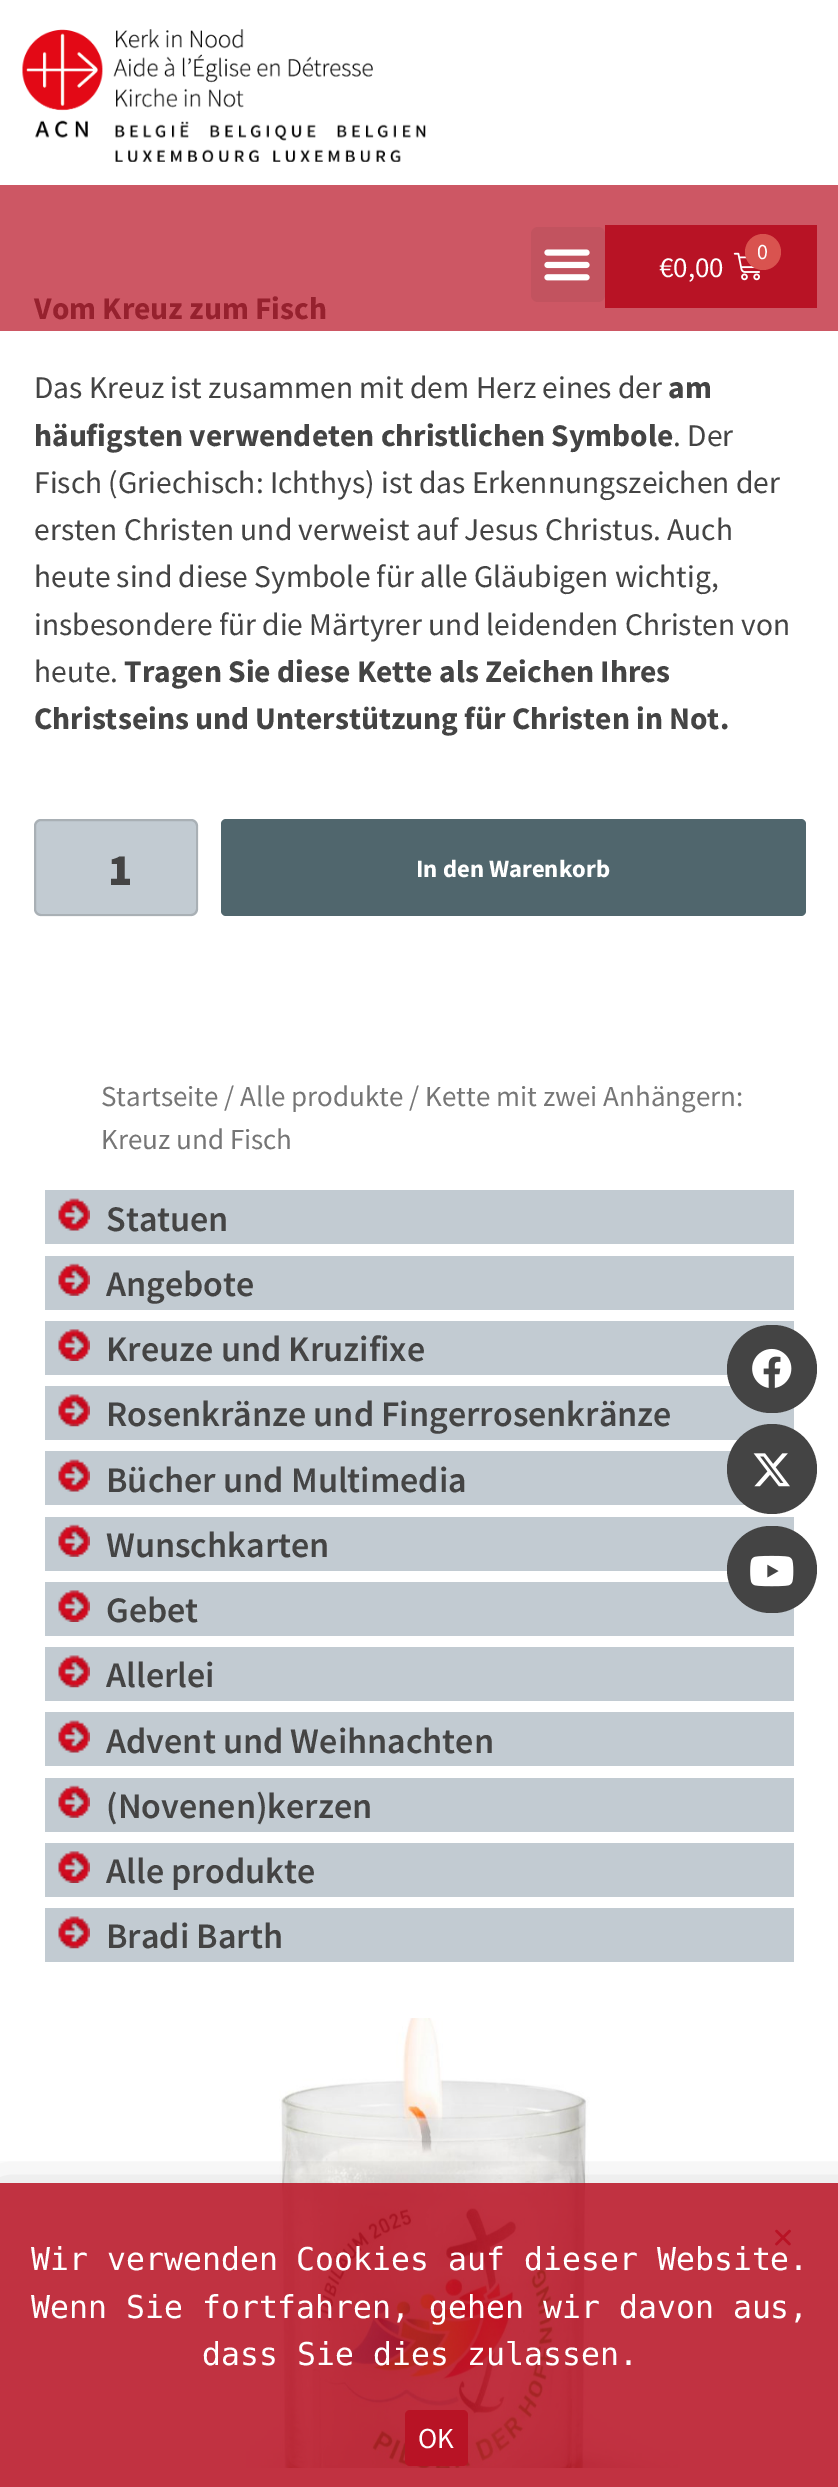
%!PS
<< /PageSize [838 2487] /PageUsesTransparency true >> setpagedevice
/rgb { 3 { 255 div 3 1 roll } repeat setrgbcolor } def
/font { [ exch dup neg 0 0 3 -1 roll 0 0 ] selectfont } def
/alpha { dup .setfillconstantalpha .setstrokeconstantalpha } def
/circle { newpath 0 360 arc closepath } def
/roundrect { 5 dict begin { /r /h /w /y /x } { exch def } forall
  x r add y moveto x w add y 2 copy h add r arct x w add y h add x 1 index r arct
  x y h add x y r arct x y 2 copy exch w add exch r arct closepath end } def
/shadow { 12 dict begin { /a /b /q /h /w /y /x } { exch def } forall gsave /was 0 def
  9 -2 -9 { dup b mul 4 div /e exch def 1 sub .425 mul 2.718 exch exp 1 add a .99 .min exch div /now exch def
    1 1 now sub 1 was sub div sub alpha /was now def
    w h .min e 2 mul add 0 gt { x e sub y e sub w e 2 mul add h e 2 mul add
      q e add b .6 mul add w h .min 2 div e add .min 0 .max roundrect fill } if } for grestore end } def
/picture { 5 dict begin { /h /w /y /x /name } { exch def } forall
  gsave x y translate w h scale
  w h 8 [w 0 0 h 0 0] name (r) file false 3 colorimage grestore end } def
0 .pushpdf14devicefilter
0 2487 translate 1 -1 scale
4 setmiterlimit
255 255 255 rgb
0 0 838 2487 rectfill
205 87 100 rgb
0 185 838 146 rectfill
(img/1.rgb) 22 29 404 133 picture
194 83 95 rgb
531 227 74 75 7 roundrect fill
(img/2.rgb) 544 249 46 32 picture
184 19 37 rgb
605 225 212 83 rectfill
(img/3.rgb) 733 252 27 29 picture
217 83 79 rgb
763 252 18 circle fill
194 203 210 rgb
34 819 164 97 7 roundrect fill
0.21 alpha
74 74 74 rgb
2 setlinewidth
35 820 162 95 6 roundrect stroke
1 alpha
80 102 109 rgb
221 819 585 97 5 roundrect fill
194 203 210 rgb
45 1190 749 54 rectfill
(img/4.rgb) 58 1198 32 33 picture
45 1256 749 54 rectfill
(img/5.rgb) 58 1263 32 33 picture
45 1321 749 54 rectfill
(img/6.rgb) 58 1329 32 32 picture
45 1386 749 54 rectfill
(img/7.rgb) 58 1394 32 33 picture
45 1451 700 54 rectfill
(img/4.rgb) 58 1459 32 33 picture
45 1517 749 54 rectfill
(img/5.rgb) 58 1524 32 33 picture
45 1582 749 54 rectfill
(img/6.rgb) 58 1590 32 32 picture
45 1647 749 54 rectfill
(img/8.rgb) 58 1655 32 33 picture
45 1712 749 54 rectfill
(img/9.rgb) 58 1720 32 33 picture
45 1778 749 54 rectfill
(img/5.rgb) 58 1785 32 33 picture
45 1843 749 54 rectfill
(img/6.rgb) 58 1851 32 32 picture
45 1908 749 54 rectfill
(img/8.rgb) 58 1916 32 33 picture
(img/10.rgb) 246 2018 434 450 picture
68 68 68 rgb
727 1325 90 88 44 roundrect fill
(img/11.rgb) 752 1348 40 40 picture
772 1469 45 circle fill
(img/12.rgb) 753 1453 37 34 picture
727 1526 90 87 43.5 roundrect fill
(img/13.rgb) 750 1555 44 32 picture
gsave
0 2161 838 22 rectclip
0 0 0 rgb
-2 2194 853 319 0 26 0.2 shadow
grestore
0.87 alpha
184 19 37 rgb
0 2183 838 304 rectfill
1 alpha
(img/14.rgb) 775 2229 16 17 picture
405 2410 63 56 5 roundrect fill
/SourceSansPro-Regular 22 font
255 255 255 rgb
757 259 moveto (0) show
/SourceSansPro-Regular 29 font
659 277 moveto (€0,00) show
/SourceSansPro-Bold 31.5 font
150 33 46 rgb
34 319 moveto (Vom Kreuz zum Fisch) show
/SourceSansPro-Regular 31.5 font
68 68 68 rgb
34 398 moveto (Das Kreuz ist zusammen mit dem Herz eines der) show
/SourceSansPro-Bold 31.5 font
668 398 moveto (am) show
34 446 moveto (häufigsten verwendeten christlichen Symbole) show
/SourceSansPro-Regular 31.5 font
[
  [(. Der) 673 446]
  [(Fisch \(Griechisch: Ichthys\) ist das Erkennungszeichen der) 34 493]
  [(ersten Christen und verweist auf Jesus Christus. Auch) 34 540]
  [(heute sind diese Symbole für alle Gläubigen wichtig,) 34 587]
  [(insbesondere für die Märtyrer und leidenden Christen von) 34 635]
  [(heute.) 34 682]
] { aload pop moveto show } forall
/SourceSansPro-Bold 31.5 font
124 682 moveto (Tragen Sie diese Kette als Zeichen Ihres) show
34 729 moveto (Christseins und Unterstützung für Christen in Not.) show
/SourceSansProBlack-Black 45 font
108 885 moveto (1) show
/SourceSansPro-Bold 24.75 font
255 255 255 rgb
416 877 moveto (In den Warenkorb) show
/SourceSansPro-Regular 29 font
118 118 118 rgb
101 1106 moveto (Startseite / Alle produkte / Kette mit zwei Anhängern:) show
101 1149 moveto (Kreuz und Fisch) show
/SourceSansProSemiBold-SemiBold 36 font
68 68 68 rgb
[
  [(Statuen) 106 1231]
  [(Angebote) 106 1296]
  [(Kreuze und Kruzifixe) 106 1361]
  [(Rosenkränze und Fingerrosenkränze) 106 1426]
  [(Bücher und Multimedia) 106 1492]
  [(Wunschkarten) 106 1557]
  [(Gebet) 106 1622]
  [(Allerlei) 106 1687]
  [(Advent und Weihnachten) 106 1753]
  [(\(Novenen\)kerzen) 106 1818]
  [(Alle produkte) 106 1883]
  [(Bradi Barth) 106 1948]
] { aload pop moveto show } forall
/DejaVuSansMono-Regular 31.5 font
255 255 255 rgb
[
  [(Wir verwenden Cookies auf dieser Website.) 31 2270]
  [(Wenn Sie fortfahren, gehen wir davon aus,) 31 2318]
  [(dass Sie dies zulassen.) 202 2365]
] { aload pop moveto show } forall
/SourceSansPro-Regular 29 font
418 2448 moveto (OK) show
.poppdf14devicefilter showpage
